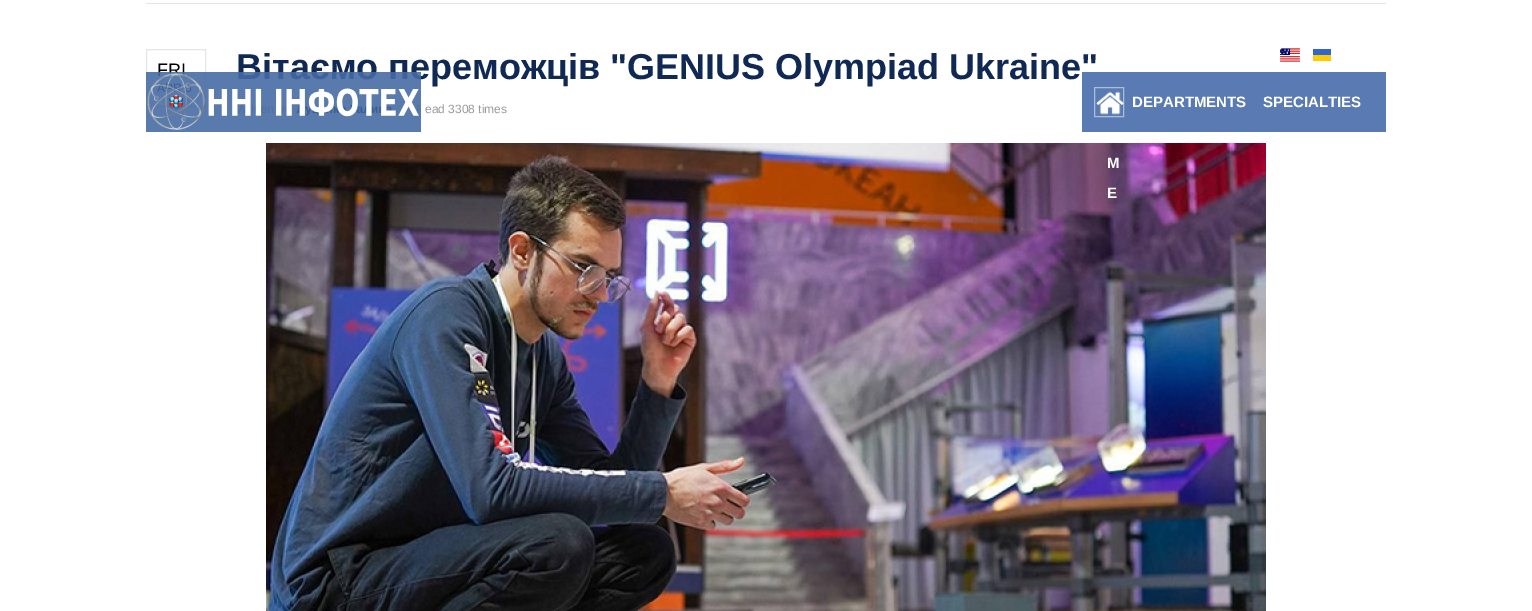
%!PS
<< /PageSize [1532 611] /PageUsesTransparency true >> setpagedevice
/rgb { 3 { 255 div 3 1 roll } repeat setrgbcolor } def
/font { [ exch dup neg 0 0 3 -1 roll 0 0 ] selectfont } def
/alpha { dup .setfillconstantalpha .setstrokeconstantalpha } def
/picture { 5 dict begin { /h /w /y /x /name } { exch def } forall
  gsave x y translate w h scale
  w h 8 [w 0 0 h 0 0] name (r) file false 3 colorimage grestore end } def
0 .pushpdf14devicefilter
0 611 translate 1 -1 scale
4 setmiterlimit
255 255 255 rgb
0 0 1532 611 rectfill
229 229 229 rgb
146 3 1240 1 rectfill
146.5 49.5 59 57 rectstroke
(img/1.rgb) 266 143 1000 468 picture
(img/2.rgb) 1280 48 20 14 picture
(img/3.rgb) 1313 49 18 12 picture
/LiberationSans-Regular 18 font
0 0 0 rgb
157 76 moveto (FRI) show
/LiberationSans-Bold 36 font
15 40 84 rgb
236 79 moveto (Вітаємо переможців "GENIUS Olympiad Ukraine") show
/LiberationSans-Regular 12 font
153 153 153 rgb
425 113 moveto (ead 3308 times) show
(img/4.rgb) 146 72 275 60 picture
89 122 178 rgb
1082 72 304 60 rectfill
/LiberationSans-Bold 15 font
255 255 255 rgb
1132 107 moveto (DEPARTMENTS) show
1263 107 moveto (SPECIALTIES) show
(img/5.rgb) 1096 91 28 24 picture
0.5 alpha
1094.5 87.5 29 29 rectstroke
1 alpha
1107 168 moveto (M) show
1107 198 moveto (E) show
.poppdf14devicefilter showpage
